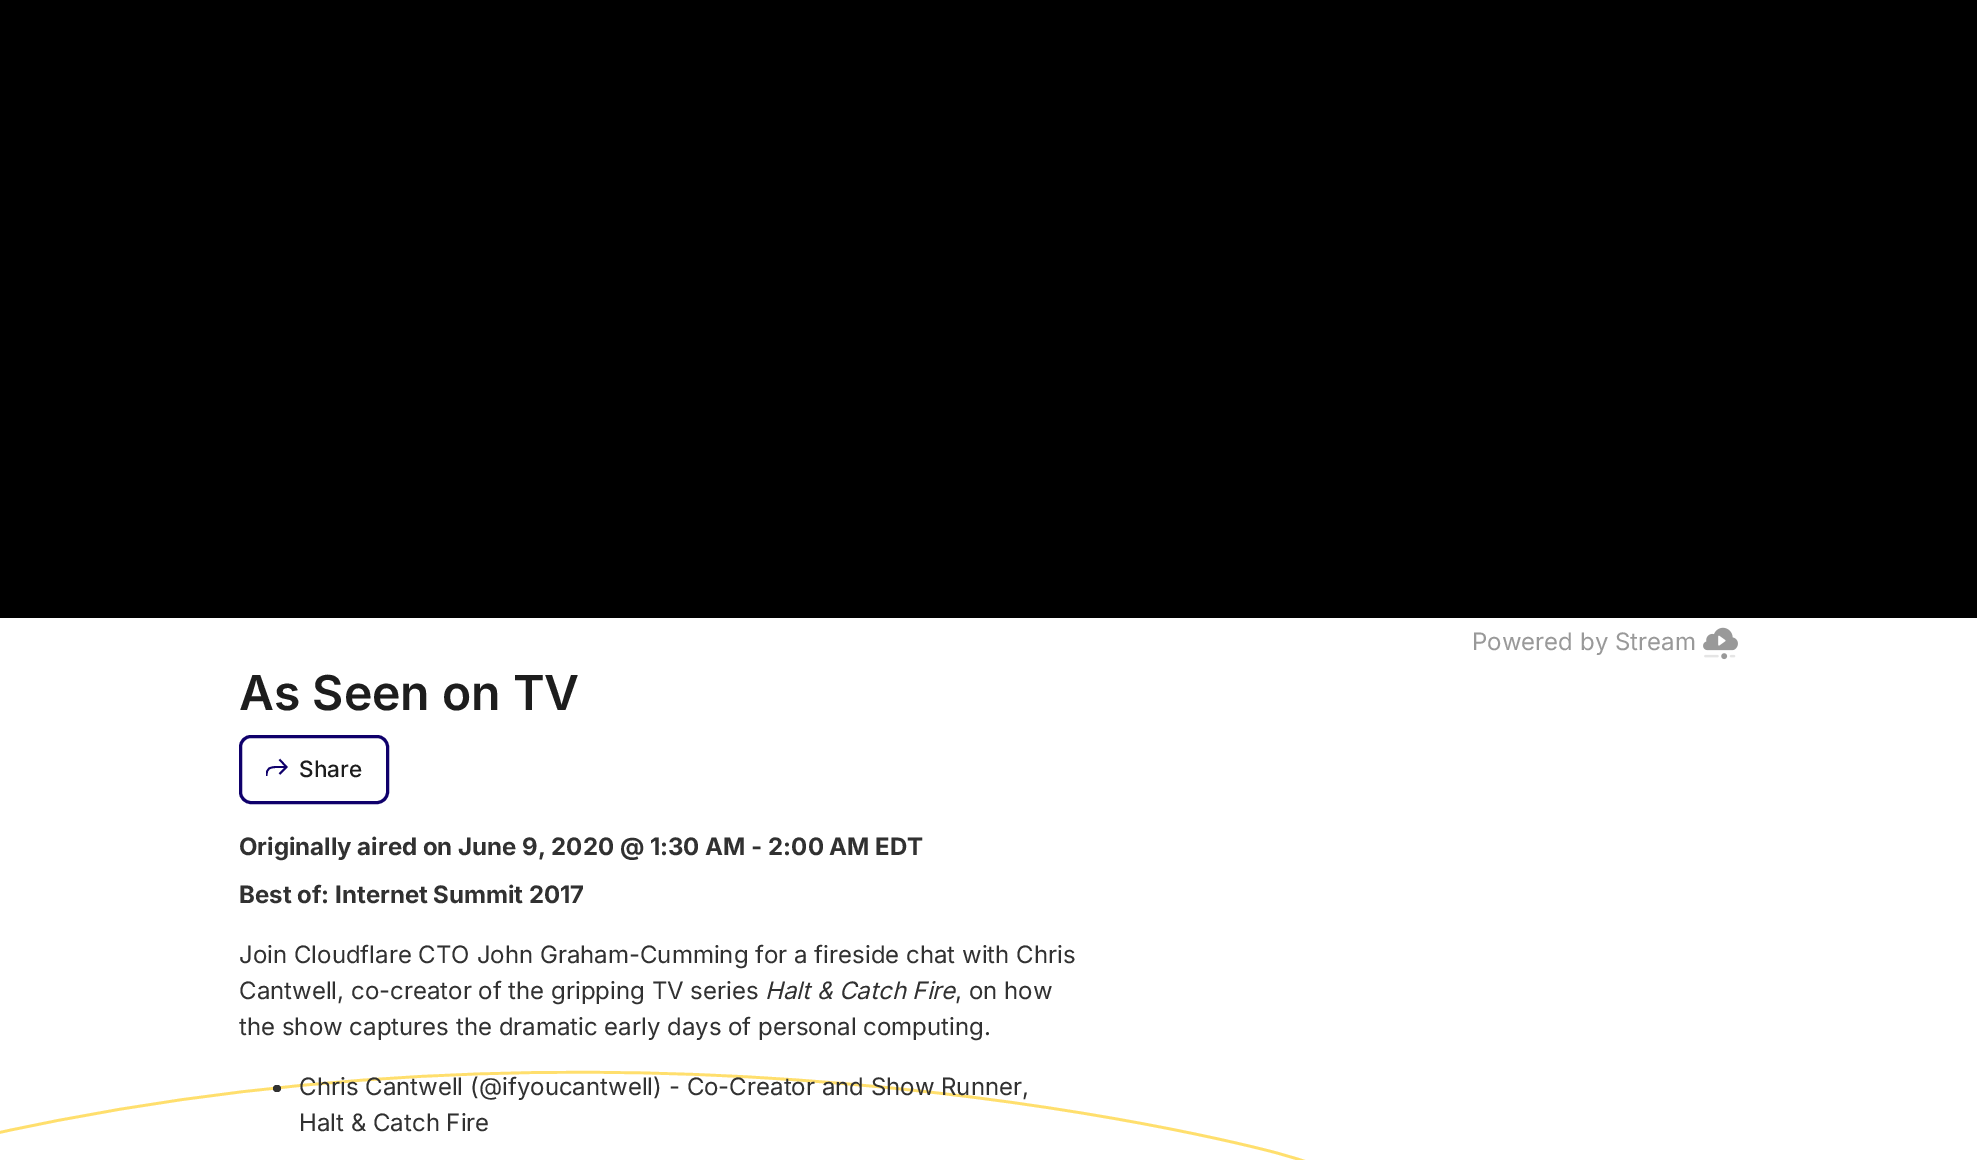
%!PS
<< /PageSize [1977 1160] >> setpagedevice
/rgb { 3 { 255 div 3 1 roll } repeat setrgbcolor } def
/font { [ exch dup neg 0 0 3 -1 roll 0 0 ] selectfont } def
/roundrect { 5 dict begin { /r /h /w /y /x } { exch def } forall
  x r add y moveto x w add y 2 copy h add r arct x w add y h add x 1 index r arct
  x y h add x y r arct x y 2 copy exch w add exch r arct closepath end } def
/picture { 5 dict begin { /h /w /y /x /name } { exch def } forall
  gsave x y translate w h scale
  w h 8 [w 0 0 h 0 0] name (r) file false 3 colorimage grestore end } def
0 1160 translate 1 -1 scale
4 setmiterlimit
255 255 255 rgb
0 0 1977 1160 rectfill
0 0 0 rgb
0 0 1977 618 rectfill
(img/1.rgb) 1703 627 35 33 picture
15 0 107 rgb
3 setlinewidth
240.5 736.5 147 66 10.5 roundrect stroke
1.8 setlinewidth
279.5 774 moveto 286.5 767 lineto 279.5 759.5 lineto stroke
gsave
266 759 22 18 rectclip
286.5 767 moveto 278 767 lineto 270 767 266.5 767.5 266.5 776 curveto stroke
grestore
255 223 109 rgb
2.7 setlinewidth
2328.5 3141.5 moveto 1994.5 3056 lineto 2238.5 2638 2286.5 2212 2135.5 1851 curveto 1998.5 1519.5 1690.5 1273 1277 1153 curveto 1277 1153 665 985 -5 1133.5 curveto stroke
49 49 49 rgb
273 1085 8 7 3.5 roundrect fill
/Inter-Regular 24 font
153 153 153 rgb
1472 650 moveto (Powered by Stream) show
/Inter-SemiBold 48 font
29 29 29 rgb
239 710 moveto (As Seen on TV) show
/Inter-Medium 22.5 font
299 777 moveto (Share) show
/Inter-Bold 24 font
49 49 49 rgb
239 855 moveto (Originally aired on June 9, 2020 @ 1:30 AM - 2:00 AM EDT) show
239 903 moveto (Best of: Internet Summit 2017) show
/Inter-Regular 24 font
239 963 moveto (Join Cloudflare CTO John Graham-Cumming for a fireside chat with Chris) show
239 999 moveto (Cantwell, co-creator of the gripping TV series) show
/Inter-Italic 24 font
765 999 moveto (Halt & Catch Fire) show
/Inter-Regular 24 font
[
  [(, on how) 955 999]
  [(the show captures the dramatic early days of personal computing.) 239 1035]
  [(Chris Cantwell \(@ifyoucantwell\) - Co-Creator and Show Runner,) 299 1095]
  [(Halt & Catch Fire) 299 1131]
] { aload pop moveto show } forall
showpage
